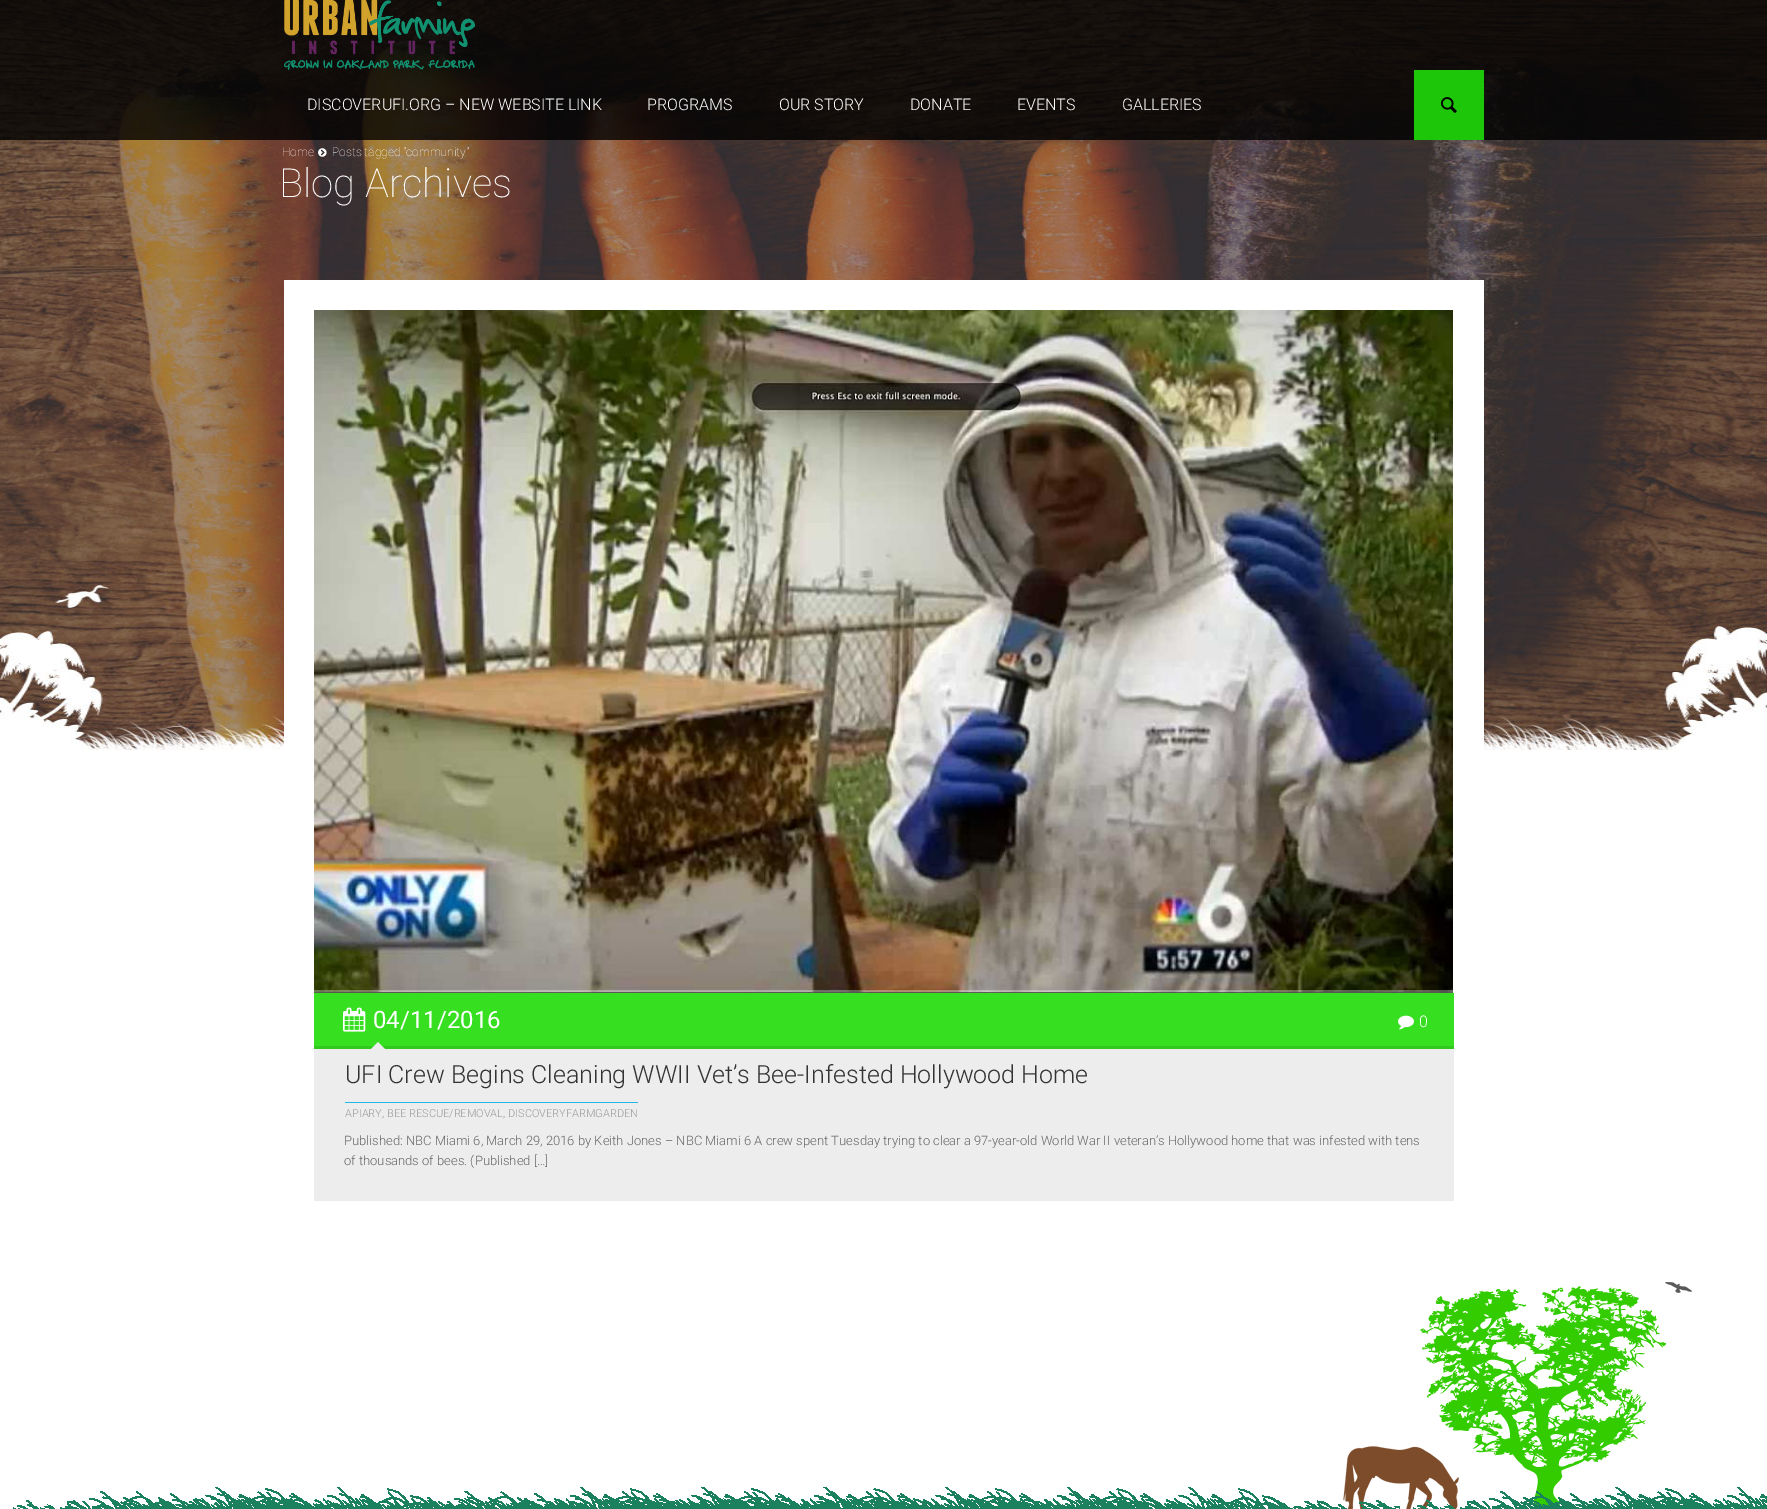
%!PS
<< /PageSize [1767 1509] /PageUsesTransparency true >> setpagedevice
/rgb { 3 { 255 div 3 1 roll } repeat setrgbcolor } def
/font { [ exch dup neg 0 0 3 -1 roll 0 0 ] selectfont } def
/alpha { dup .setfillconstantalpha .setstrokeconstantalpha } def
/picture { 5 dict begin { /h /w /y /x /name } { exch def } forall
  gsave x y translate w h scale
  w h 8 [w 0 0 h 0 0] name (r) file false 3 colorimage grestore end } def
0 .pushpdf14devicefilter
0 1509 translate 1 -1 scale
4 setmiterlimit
255 255 255 rgb
0 0 1767 1509 rectfill
(img/1.rgb) 0 0 1767 750 picture
0.8 alpha
0 0 0 rgb
0 0 1767 140 rectfill
1 alpha
(img/2.rgb) 284 0 191 70 picture
30 198 9 rgb
1414 70 70 70 rectfill
(img/3.rgb) 1441 97 16 16 picture
255 255 255 rgb
284 280 1200 470 rectfill
(img/4.rgb) 318 148 9 9 picture
(img/5.rgb) 314 310 1139 683 picture
0.3 alpha
314 990 1140 3 rectfill
1 alpha
55 223 33 rgb
314 993 1140 53 rectfill
(img/6.rgb) 343 1007 23 25 picture
(img/7.rgb) 1398 1015 16 15 picture
50 201 30 rgb
314 1046 1140 3 rectfill
237 237 237 rgb
385 1049 moveto 371 1049 lineto 378 1042 lineto closepath fill
314 1049 1140 152 rectfill
32 182 232 rgb
345 1102 293 1 rectfill
(img/8.rgb) 1343 1282 349 227 picture
(img/9.rgb) 13 1487 1754 22 picture
/Roboto-Light 16 font
255 255 255 rgb
[
  [(DISCOVERUFI.ORG – NEW WEBSITE LINK) 307 110]
  [(PROGRAMS) 647 110]
  [(OUR STORY) 779 110]
  [(DONATE) 910 110]
  [(EVENTS) 1017 110]
  [(GALLERIES) 1122 110]
] { aload pop moveto show } forall
/Roboto-Thin 12 font
282 156 moveto (Home) show
332 156 moveto (Posts tagged "community") show
/Roboto-Thin 40 font
279 197 moveto (Blog Archives) show
/Roboto-Regular 24 font
373 1028 moveto (04/11/2016) show
/Roboto-Light 16 font
1419 1027 moveto (0) show
/Roboto-Light 25 font
51 51 51 rgb
345 1083 moveto (UFI Crew Begins Cleaning WWII Vet’s Bee-Infested Hollywood Home) show
/Roboto-Light 11 font
153 153 153 rgb
345 1117 moveto (APIARY, BEE RESCUE/REMOVAL, DISCOVERYFARMGARDEN) show
/Roboto-Light 13 font
102 102 102 rgb
344 1145 moveto (Published: NBC Miami 6, March 29, 2016 by Keith Jones – NBC Miami 6 A crew spent Tuesday trying to clear a 97-year-old World War II veteran’s Hollywood home that was infested with tens) show
344 1165 moveto (of thousands of bees. \(Published […]) show
.poppdf14devicefilter showpage
